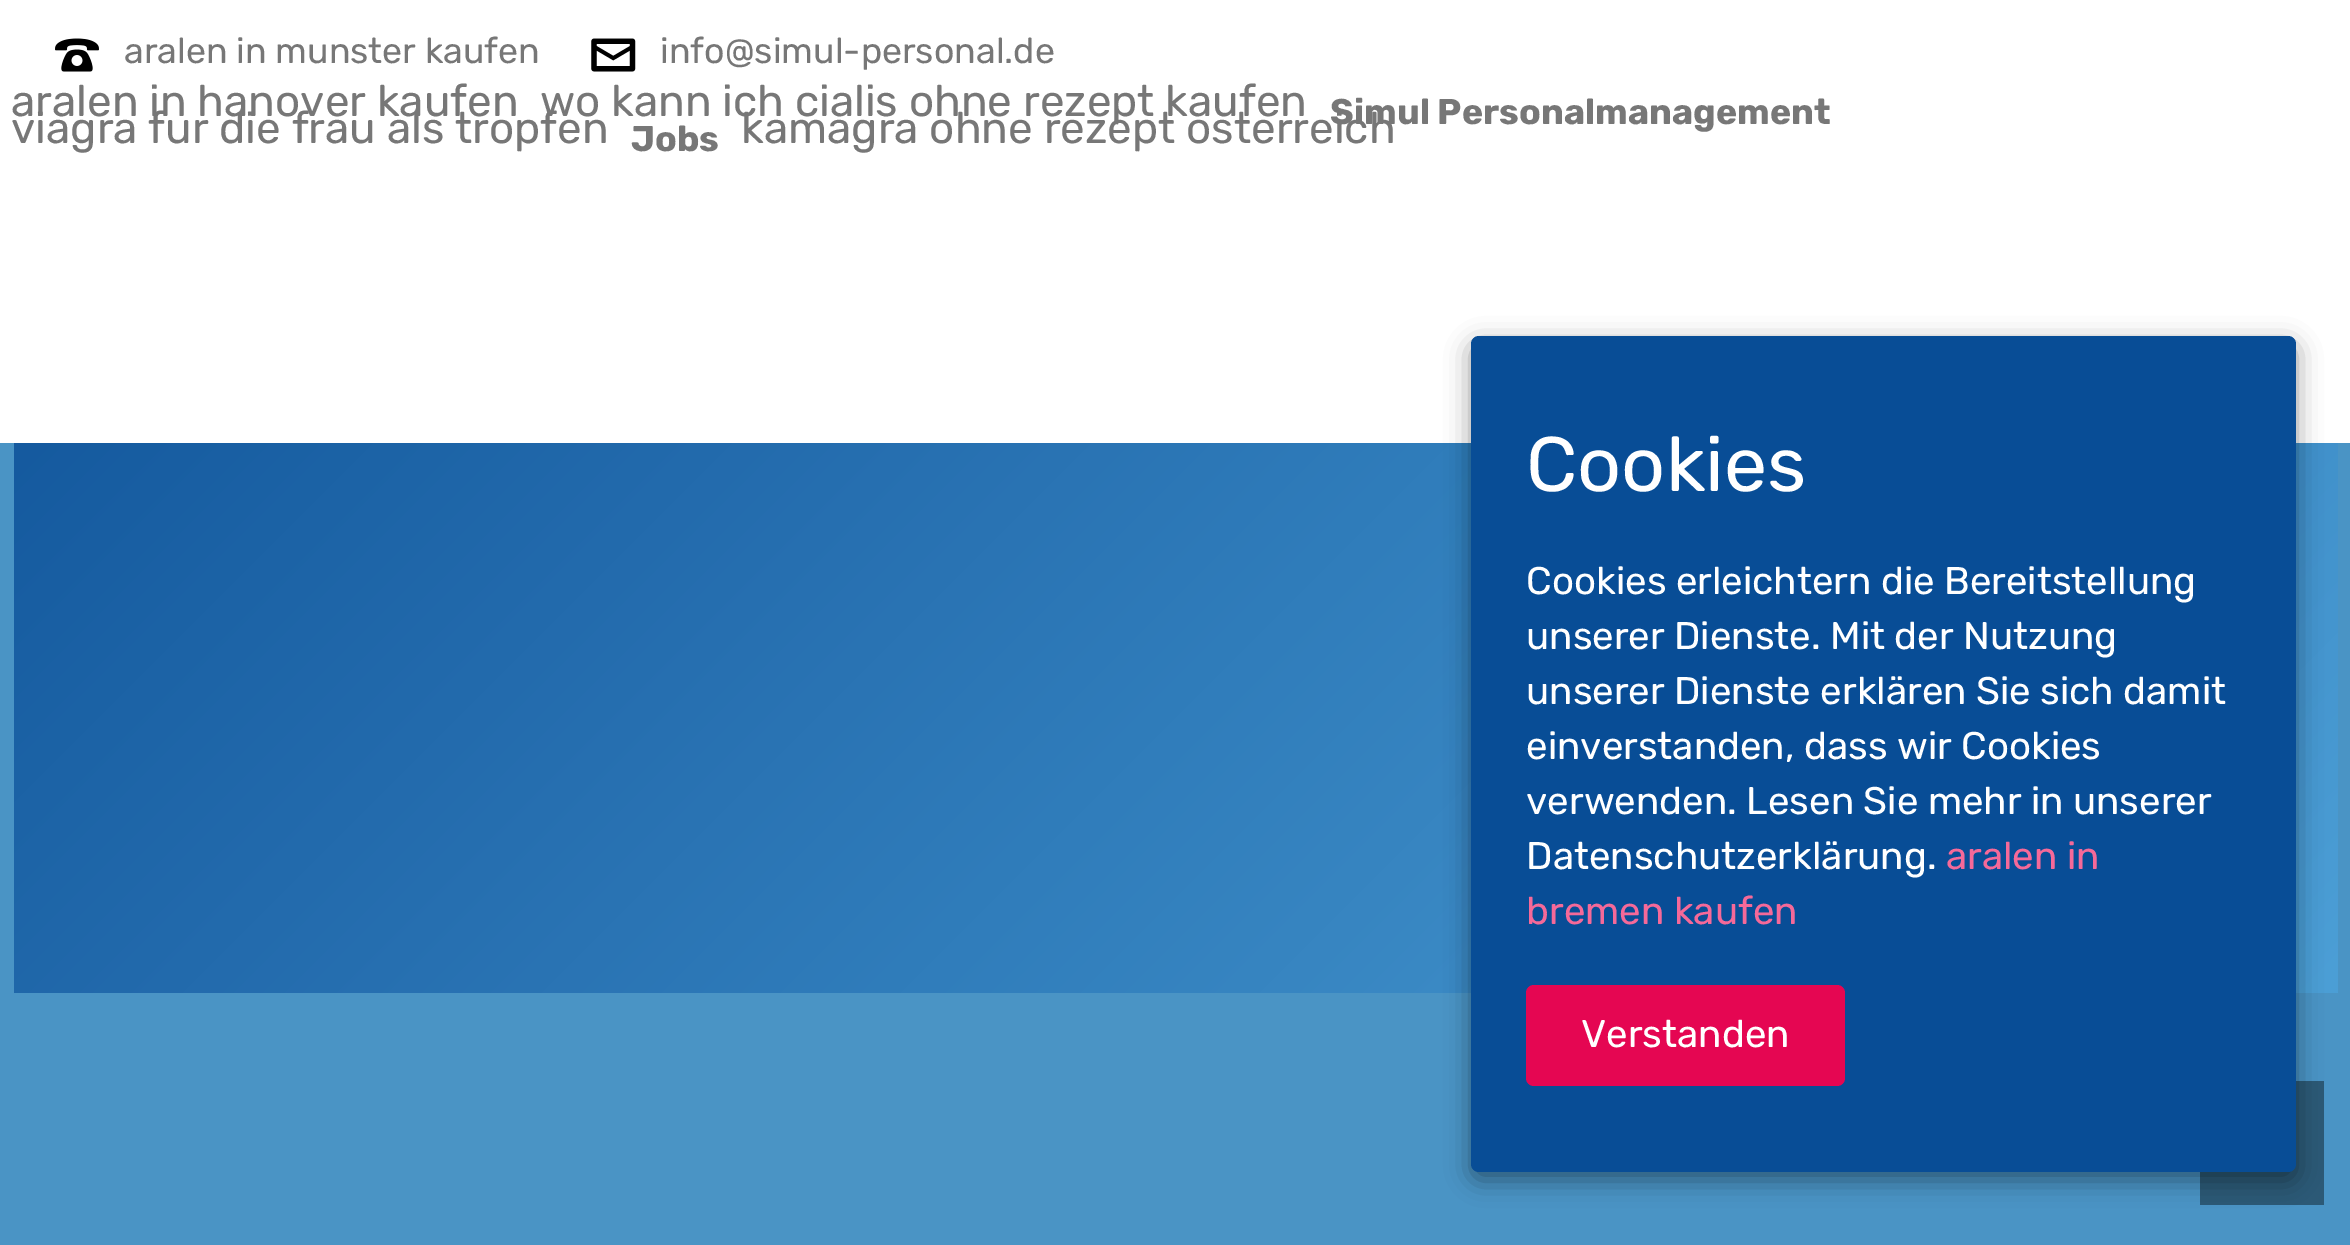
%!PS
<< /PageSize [2350 1245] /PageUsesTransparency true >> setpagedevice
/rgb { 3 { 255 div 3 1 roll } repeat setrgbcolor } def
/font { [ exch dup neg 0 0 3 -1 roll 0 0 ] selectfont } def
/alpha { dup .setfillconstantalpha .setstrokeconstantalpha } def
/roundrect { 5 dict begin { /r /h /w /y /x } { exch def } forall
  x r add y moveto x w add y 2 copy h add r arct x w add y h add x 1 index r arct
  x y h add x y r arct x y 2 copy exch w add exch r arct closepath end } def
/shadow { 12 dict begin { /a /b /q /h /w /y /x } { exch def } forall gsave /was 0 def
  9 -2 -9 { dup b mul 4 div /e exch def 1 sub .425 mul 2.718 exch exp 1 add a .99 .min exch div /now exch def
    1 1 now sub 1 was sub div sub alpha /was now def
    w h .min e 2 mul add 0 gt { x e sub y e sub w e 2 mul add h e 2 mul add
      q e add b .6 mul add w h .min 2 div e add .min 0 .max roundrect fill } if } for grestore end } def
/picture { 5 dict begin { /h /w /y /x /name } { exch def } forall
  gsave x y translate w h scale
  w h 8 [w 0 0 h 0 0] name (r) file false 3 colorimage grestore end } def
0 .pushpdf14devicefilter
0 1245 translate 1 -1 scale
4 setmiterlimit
255 255 255 rgb
0 0 2350 1245 rectfill
(img/1.rgb) 55 38 44 34 picture
(img/2.rgb) 591 38 45 34 picture
74 148 197 rgb
0 443 2350 802 rectfill
gsave 14 443 moveto 2338 443 lineto 2338 993 lineto 14 993 lineto closepath clip newpath
<< /ShadingType 2 /ColorSpace /DeviceRGB /Coords [457 -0.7 1894 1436] /Extend [true true] /Function << /FunctionType 2 /Domain [0 1] /C0 [0.082 0.353 0.624] /C1 [0.298 0.624 0.839] /N 1 >> >> shfill grestore
44 89 118 rgb
2200 1081 124 124 rectfill
0 0 0 rgb
1471 344 825 836 8 12.5 0.4 shadow
8 77 150 rgb
1471 336 825 836 8 roundrect fill
229 6 82 rgb
1526 985 319 101 8 roundrect fill
/Rubik-Regular 35.75 font
119 119 119 rgb
124 63 moveto (aralen in munster kaufen) show
660 63 moveto (info@simul-personal.de) show
/Rubik-Regular 44 font
11 116 moveto (aralen in hanover kaufen) show
540 116 moveto (wo kann ich cialis ohne rezept kaufen) show
/Rubik-Bold 35.75 font
1330 124 moveto (Simul Personalmanagement) show
/Rubik-Regular 44 font
11 143 moveto (viagra fur die frau als tropfen) show
/Rubik-Bold 35.75 font
631 151 moveto (Jobs) show
/Rubik-Regular 44 font
741 143 moveto (kamagra ohne rezept osterreich) show
/Rubik-Regular 77 font
255 255 255 rgb
1526 491 moveto (Cookies) show
/Rubik-Regular 38.5 font
[
  [(Cookies erleichtern die Bereitstellung) 1526 594]
  [(unserer Dienste. Mit der Nutzung) 1526 649]
  [(unserer Dienste erklären Sie sich damit) 1526 704]
  [(einverstanden, dass wir Cookies) 1526 759]
  [(verwenden. Lesen Sie mehr in unserer) 1526 814]
  [(Datenschutzerklärung.) 1526 869]
] { aload pop moveto show } forall
245 105 153 rgb
1946 869 moveto (aralen in) show
1526 924 moveto (bremen kaufen) show
255 255 255 rgb
1581 1047 moveto (Verstanden) show
.poppdf14devicefilter showpage
